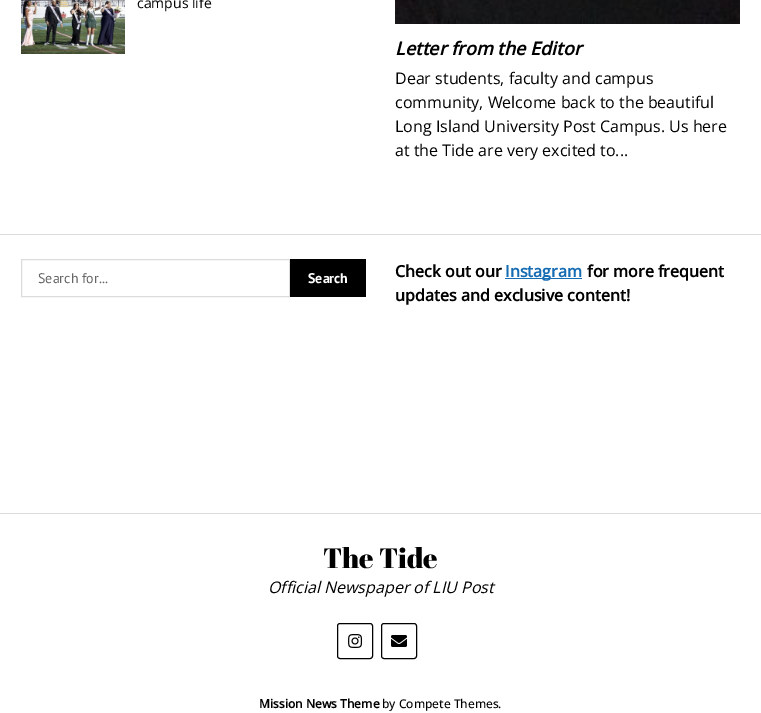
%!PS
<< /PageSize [761 713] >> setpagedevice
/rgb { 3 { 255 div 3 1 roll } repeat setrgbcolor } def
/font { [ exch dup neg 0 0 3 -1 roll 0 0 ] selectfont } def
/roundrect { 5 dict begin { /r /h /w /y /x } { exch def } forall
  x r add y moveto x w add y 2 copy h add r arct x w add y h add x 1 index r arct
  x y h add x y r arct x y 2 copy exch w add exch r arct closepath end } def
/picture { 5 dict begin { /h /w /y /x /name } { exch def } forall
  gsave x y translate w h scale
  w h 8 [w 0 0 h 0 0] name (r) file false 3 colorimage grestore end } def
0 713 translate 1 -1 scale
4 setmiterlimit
255 255 255 rgb
0 0 761 713 rectfill
(img/1.rgb) 21 0 104 54 picture
(img/2.rgb) 395 0 345 24 picture
220 220 220 rgb
0 234 761 1 rectfill
21.5 259.5 268 37 rectstroke
[
  [290 259 76 38 0 0 0]
  [505 278 77 1 23 109 179]
  [0 513 761 1 220 220 220]
] { aload pop rgb rectfill } forall
0 0 0 rgb
337.5 623.5 35 35 2.5 roundrect stroke
(img/3.rgb) 348 634 15 14 picture
381.5 623.5 35 35 2.5 roundrect stroke
(img/4.rgb) 391 635 16 12 picture
/OpenSans-Regular 14 font
137 8 moveto (campus life) show
/OpenSans-BoldItalic 18 font
395 55 moveto (Letter from the Editor) show
/OpenSans-Regular 16 font
[
  [(Dear students, faculty and campus) 395 84]
  [(community, Welcome back to the beautiful) 395 108]
  [(Long Island University Post Campus. Us here) 395 132]
  [(at the Tide are very excited to...) 395 156]
] { aload pop moveto show } forall
/PTSans-Regular 14 font
102 102 102 rgb
38 283 moveto (Search for...) show
/PTSans-Bold 14 font
255 255 255 rgb
308 283 moveto (Search) show
/OpenSans-Bold 16 font
0 0 0 rgb
395 277 moveto (Check out our) show
23 109 179 rgb
505 277 moveto (Instagram) show
0 0 0 rgb
587 277 moveto (for more frequent) show
395 301 moveto (updates and exclusive content!) show
/AbrilFatface-Regular 28 font
323 568 moveto (The Tide) show
/OpenSans-Italic 16 font
268 593 moveto (Official Newspaper of LIU Post) show
/OpenSans-Bold 12 font
259 708 moveto (Mission News Theme) show
/OpenSans-Medium 12 font
382 708 moveto (by Compete Themes.) show
showpage
